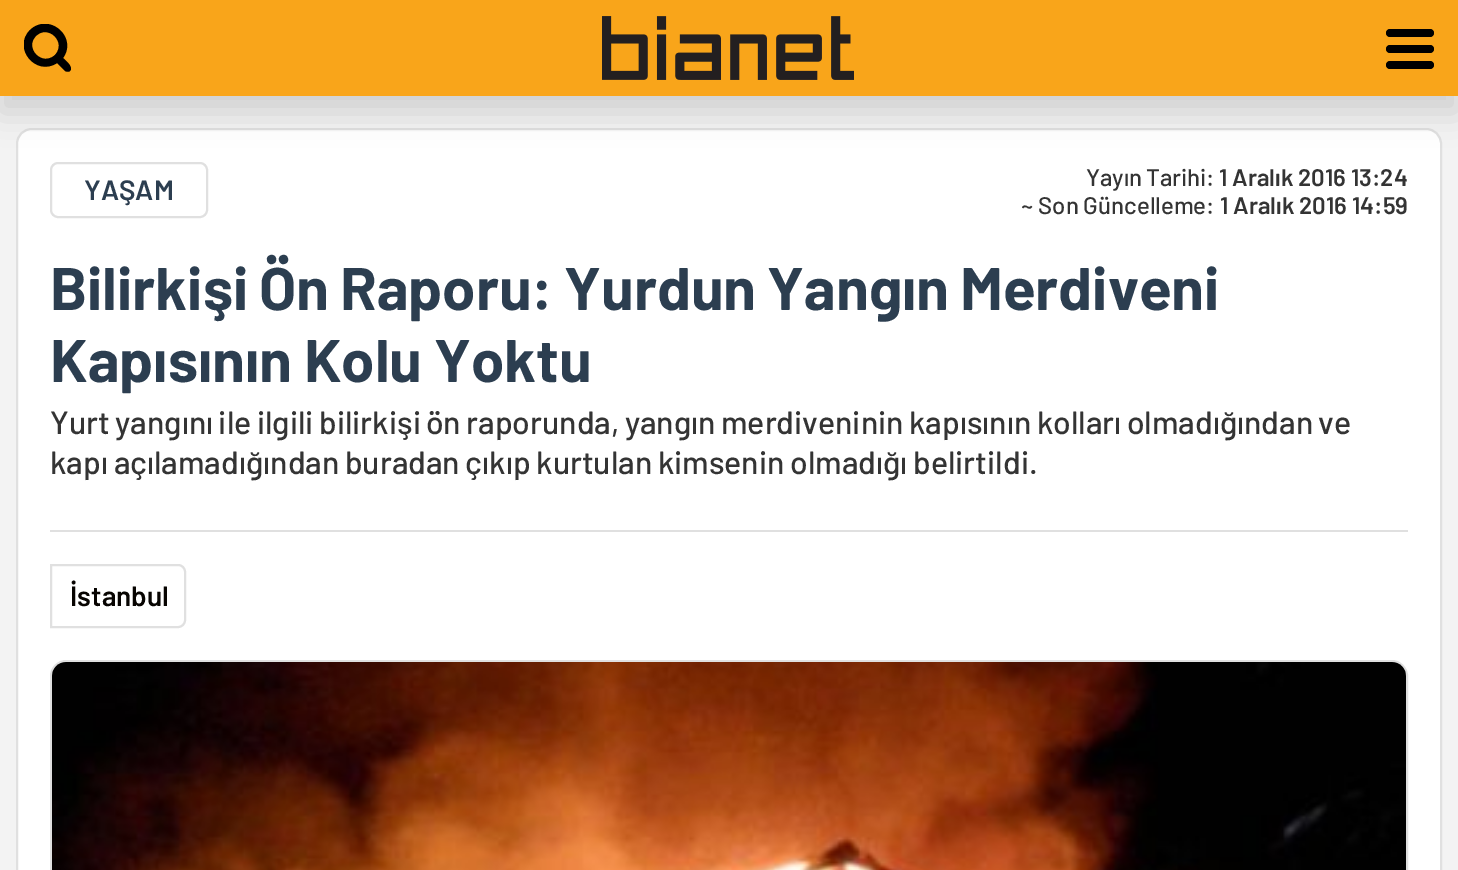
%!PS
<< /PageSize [1458 870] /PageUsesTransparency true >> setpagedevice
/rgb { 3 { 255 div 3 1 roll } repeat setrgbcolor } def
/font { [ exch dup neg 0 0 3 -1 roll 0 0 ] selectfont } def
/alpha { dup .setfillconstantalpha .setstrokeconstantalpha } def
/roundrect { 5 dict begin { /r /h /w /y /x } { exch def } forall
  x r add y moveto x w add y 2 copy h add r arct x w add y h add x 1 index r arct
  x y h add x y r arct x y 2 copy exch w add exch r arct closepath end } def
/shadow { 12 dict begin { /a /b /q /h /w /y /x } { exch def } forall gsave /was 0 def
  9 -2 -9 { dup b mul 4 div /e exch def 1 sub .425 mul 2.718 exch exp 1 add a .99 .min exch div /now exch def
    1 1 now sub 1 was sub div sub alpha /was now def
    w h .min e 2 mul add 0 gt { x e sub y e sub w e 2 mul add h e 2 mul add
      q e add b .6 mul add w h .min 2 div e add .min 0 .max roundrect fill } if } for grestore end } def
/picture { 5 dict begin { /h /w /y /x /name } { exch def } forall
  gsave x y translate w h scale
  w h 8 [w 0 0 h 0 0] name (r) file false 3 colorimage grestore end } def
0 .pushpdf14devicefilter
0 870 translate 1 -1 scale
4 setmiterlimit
243 243 243 rgb
0 0 1458 870 rectfill
255 255 255 rgb
32 129 moveto 1426 129 lineto 1434.5 129 1441 135.5 1441 144 curveto 1441 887 lineto 17 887 lineto 17 144 lineto 17 135.5 23.5 129 32 129 curveto closepath gsave fill grestore
224 224 224 rgb
2 setlinewidth
stroke
0 0 0 rgb
0 16 1458 96 0 16 0.15 shadow
249 165 26 rgb
0 0 1458 96 rectfill
gsave
24 24 48 48 rectclip
0 0 0 rgb
30 30 moveto 49 12 78 37 63 58 curveto 65 60 74 67 70 71 curveto 69 72 67 72 65 71 curveto 57 63 lineto 36 77 12 48 30 30 curveto closepath 36 36 moveto 24 48 42 67 55 55 curveto 67 42 48 24 36 36 curveto closepath eofill
grestore
(img/1.rgb) 602 16 252 64 picture
0 0 0 rgb
1386 29 48 8 4 roundrect fill
1386 45 48 8 4 roundrect fill
1386 61 48 8 4 roundrect fill
224 224 224 rgb
51 163 156 54 7 roundrect stroke
50 530 1358 2 rectfill
51 565 moveto 178 565 lineto 182 565 185 568 185 572 curveto 185 620 lineto 185 624 182 627 178 627 curveto 51 627 lineto closepath stroke
51 661 1356 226 15 roundrect stroke
(img/2.rgb) 52 662 1354 208 picture
/Barlow-SemiBold 28 font
44 62 80 rgb
84 200 moveto (YAŞAM) show
/Barlow-Medium 24 font
52 52 52 rgb
1086 186 moveto -1 0 32 (Yayın Tarihi:) widthshow
/Barlow-SemiBold 24 font
1219 186 moveto (1 Aralık 2016 13:24) show
/Barlow-Medium 24 font
1021 214 moveto (~ Son Güncelleme:) show
/Barlow-SemiBold 24 font
1220 214 moveto (1 Aralık 2016 14:59) show
/Barlow-Bold 60 font
44 62 80 rgb
50 310 moveto -1.25 0 32 (Bilirkişi Ön Raporu: Yurdun Yangın Merdiveni) widthshow
50 382 moveto (Kapısının Kolu Yoktu) show
/Barlow-Medium 32 font
52 52 52 rgb
50 434 moveto -1 0 32 (Yurt yangını ile ilgili bilirkişi ön raporunda, yangın merdiveninin kapısının kolları olmadığından ve) widthshow
50 474 moveto -0.75 0 32 (kapı açılamadığından buradan çıkıp kurtulan kimsenin olmadığı belirtildi.) widthshow
/Barlow-SemiBold 28 font
7 4 1 rgb
70 606 moveto (İstanbul) show
.poppdf14devicefilter showpage
